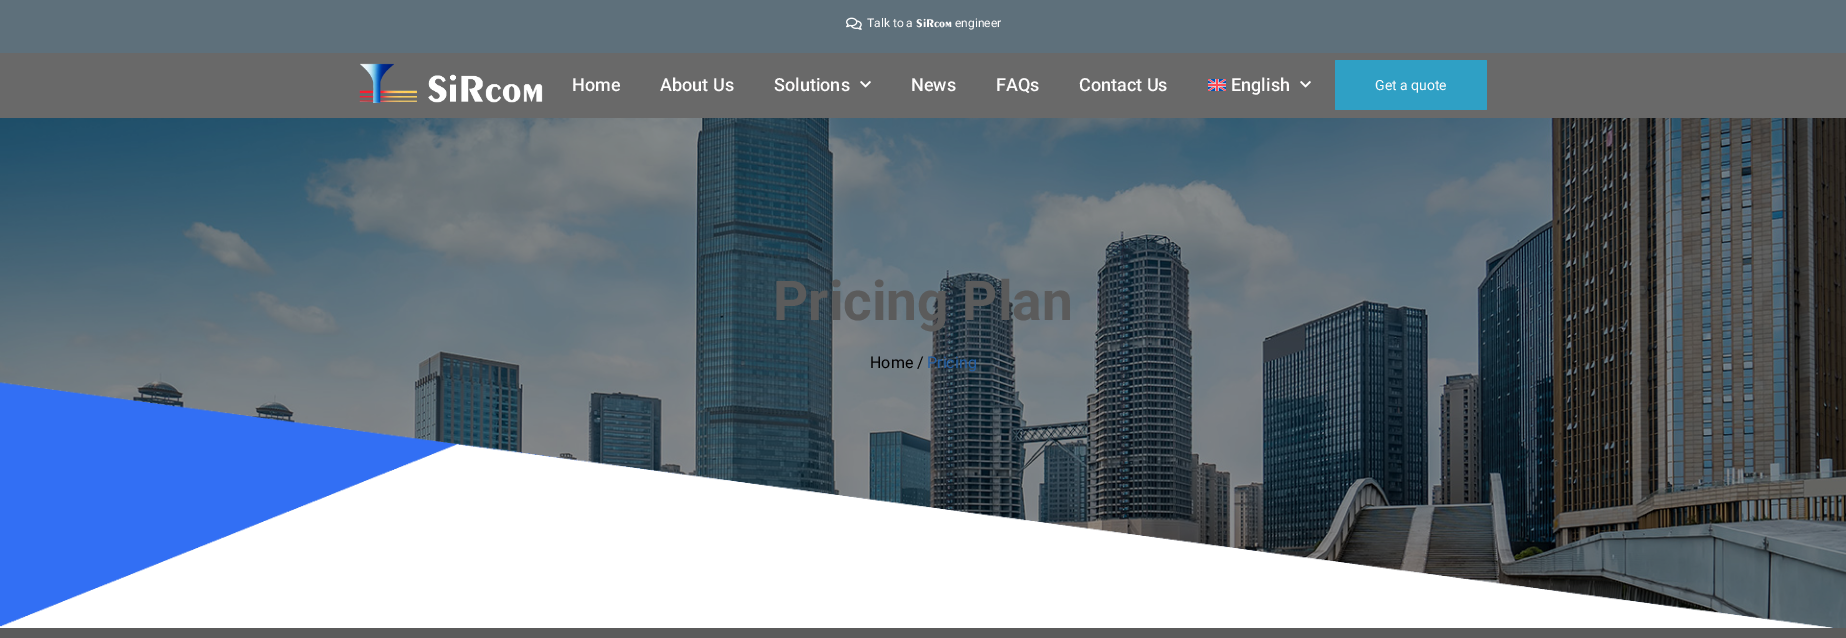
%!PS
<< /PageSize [1846 638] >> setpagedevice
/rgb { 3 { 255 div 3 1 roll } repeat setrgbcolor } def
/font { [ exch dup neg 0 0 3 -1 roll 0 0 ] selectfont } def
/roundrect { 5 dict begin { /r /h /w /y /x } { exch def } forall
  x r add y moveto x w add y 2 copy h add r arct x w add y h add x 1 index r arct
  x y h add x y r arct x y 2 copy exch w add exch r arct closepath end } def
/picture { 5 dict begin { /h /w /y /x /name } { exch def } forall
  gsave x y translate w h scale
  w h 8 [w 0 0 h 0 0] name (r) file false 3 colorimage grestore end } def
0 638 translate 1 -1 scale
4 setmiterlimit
255 255 255 rgb
0 0 1846 638 rectfill
105 105 105 rgb
0 53 1846 65 rectfill
94 112 123 rgb
0 0 1846 53 rectfill
(img/1.rgb) 846 17 16 13 picture
(img/2.rgb) 359 63 184 40 picture
(img/3.rgb) 860 81 11 7 picture
(img/4.rgb) 1208 79 18 12 picture
(img/3.rgb) 1300 81 11 7 picture
47 160 197 rgb
1335 60 152 50 1 roundrect fill
(img/5.rgb) 0 118 1846 510 picture
(img/6.rgb) 0 382 1833 246 picture
91 91 91 rgb
0 628 1846 10 rectfill
/Roboto-Regular 12 font
253 252 252 rgb
867 27 moveto (Talk to a) show
/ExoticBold-Bold 12 font
916 27 moveto (SiRcom) show
/Roboto-Regular 12 font
955 27 moveto (engineer) show
/Roboto-Medium 18 font
[
  [(Home) 572 91]
  [(About Us) 660 91]
  [(Solutions) 774 91]
  [(News) 911 91]
  [(FAQs) 996 91]
  [(Contact Us) 1079 91]
  [(English) 1231 91]
] { aload pop moveto show } forall
/Roboto-Regular 14 font
1375 90 moveto (Get a quote) show
/Roboto-Bold 55 font
91 91 91 rgb
773 320 moveto (Pricing Plan) show
/Roboto-Regular 16 font
2 1 1 rgb
870 368 moveto (Home /) show
35 95 164 rgb
927 368 moveto (Pricing) show
showpage
